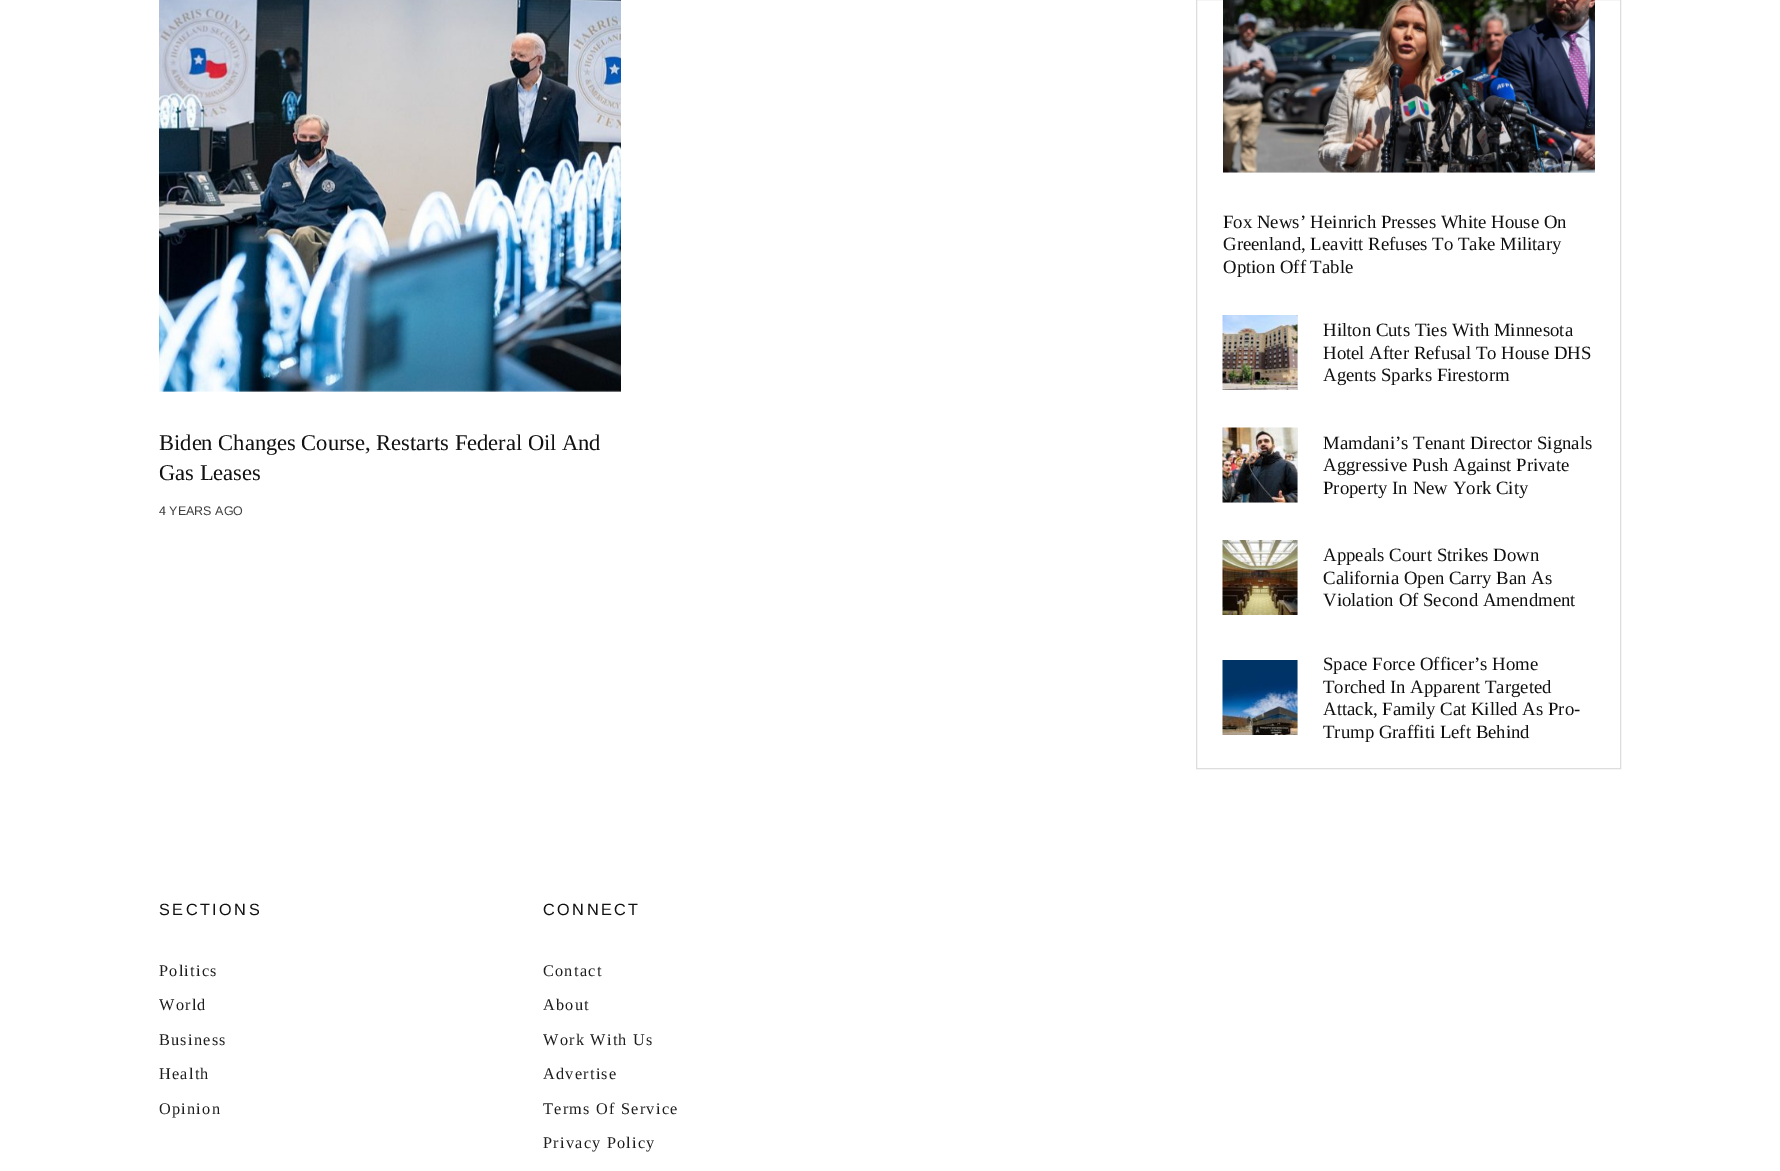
%!PS
<< /PageSize [1780 1171] >> setpagedevice
/rgb { 3 { 255 div 3 1 roll } repeat setrgbcolor } def
/font { [ exch dup neg 0 0 3 -1 roll 0 0 ] selectfont } def
/picture { 5 dict begin { /h /w /y /x /name } { exch def } forall
  gsave x y translate w h scale
  w h 8 [w 0 0 h 0 0] name (r) file false 3 colorimage grestore end } def
0 1171 translate 1 -1 scale
4 setmiterlimit
255 255 255 rgb
0 0 1780 1171 rectfill
(img/1.rgb) 159 0 462 392 picture
221 221 221 rgb
1196.5 -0.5 424 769 rectstroke
238 238 238 rgb
1223 172 372 1 rectfill
(img/2.rgb) 1223 0 372 173 picture
1297 315 1 75 rectfill
(img/3.rgb) 1222 315 76 75 picture
1223 428 75 75 rectfill
(img/4.rgb) 1222 427 76 76 picture
1297 540 1 75 rectfill
(img/5.rgb) 1222 540 76 75 picture
1297 660 1 75 rectfill
(img/6.rgb) 1222 660 76 75 picture
/LiberationSerif-Regular 22.5 font
17 17 17 rgb
159 450 moveto (Biden Changes Course, Restarts Federal Oil And) show
159 480 moveto (Gas Leases) show
/LiberationSans-Regular 12.5 font
63 63 63 rgb
159 515 moveto (4 YEARS AGO) show
/LiberationSerif-Regular 18.75 font
17 17 17 rgb
[
  [(Fox News’ Heinrich Presses White House On) 1223 228]
  [(Greenland, Leavitt Refuses To Take Military) 1223 250]
  [(Option Off Table) 1223 273]
  [(Hilton Cuts Ties With Minnesota) 1323 336]
  [(Hotel After Refusal To House DHS) 1323 359]
  [(Agents Sparks Firestorm) 1323 381]
  [(Mamdani’s Tenant Director Signals) 1323 449]
  [(Aggressive Push Against Private) 1323 471]
  [(Property In New York City) 1323 494]
  [(Appeals Court Strikes Down) 1323 561]
  [(California Open Carry Ban As) 1323 584]
  [(Violation Of Second Amendment) 1323 606]
  [(Space Force Officer’s Home) 1323 670]
  [(Torched In Apparent Targeted) 1323 693]
  [(Attack, Family Cat Killed As Pro-) 1323 715]
  [(Trump Graffiti Left Behind) 1323 738]
] { aload pop moveto show } forall
/LiberationSans-Regular 16.25 font
159 915 moveto 2.5 0 (SECTIONS) ashow
/LiberationSerif-Regular 16.25 font
30 30 30 rgb
159 976 moveto 1.25 0 (Politics) ashow
159 1010 moveto 1.25 0 (World) ashow
159 1045 moveto 1.25 0 (Business) ashow
159 1079 moveto 1.25 0 (Health) ashow
159 1114 moveto 1.25 0 (Opinion) ashow
/LiberationSans-Regular 16.25 font
17 17 17 rgb
543 915 moveto 2.5 0 (CONNECT) ashow
/LiberationSerif-Regular 16.25 font
30 30 30 rgb
543 976 moveto 1.25 0 (Contact) ashow
543 1010 moveto 1.25 0 (About) ashow
543 1045 moveto 1.25 0 (Work With Us) ashow
543 1079 moveto 1.25 0 (Advertise) ashow
543 1114 moveto 1.25 0 (Terms Of Service) ashow
543 1148 moveto 1.25 0 (Privacy Policy) ashow
showpage
